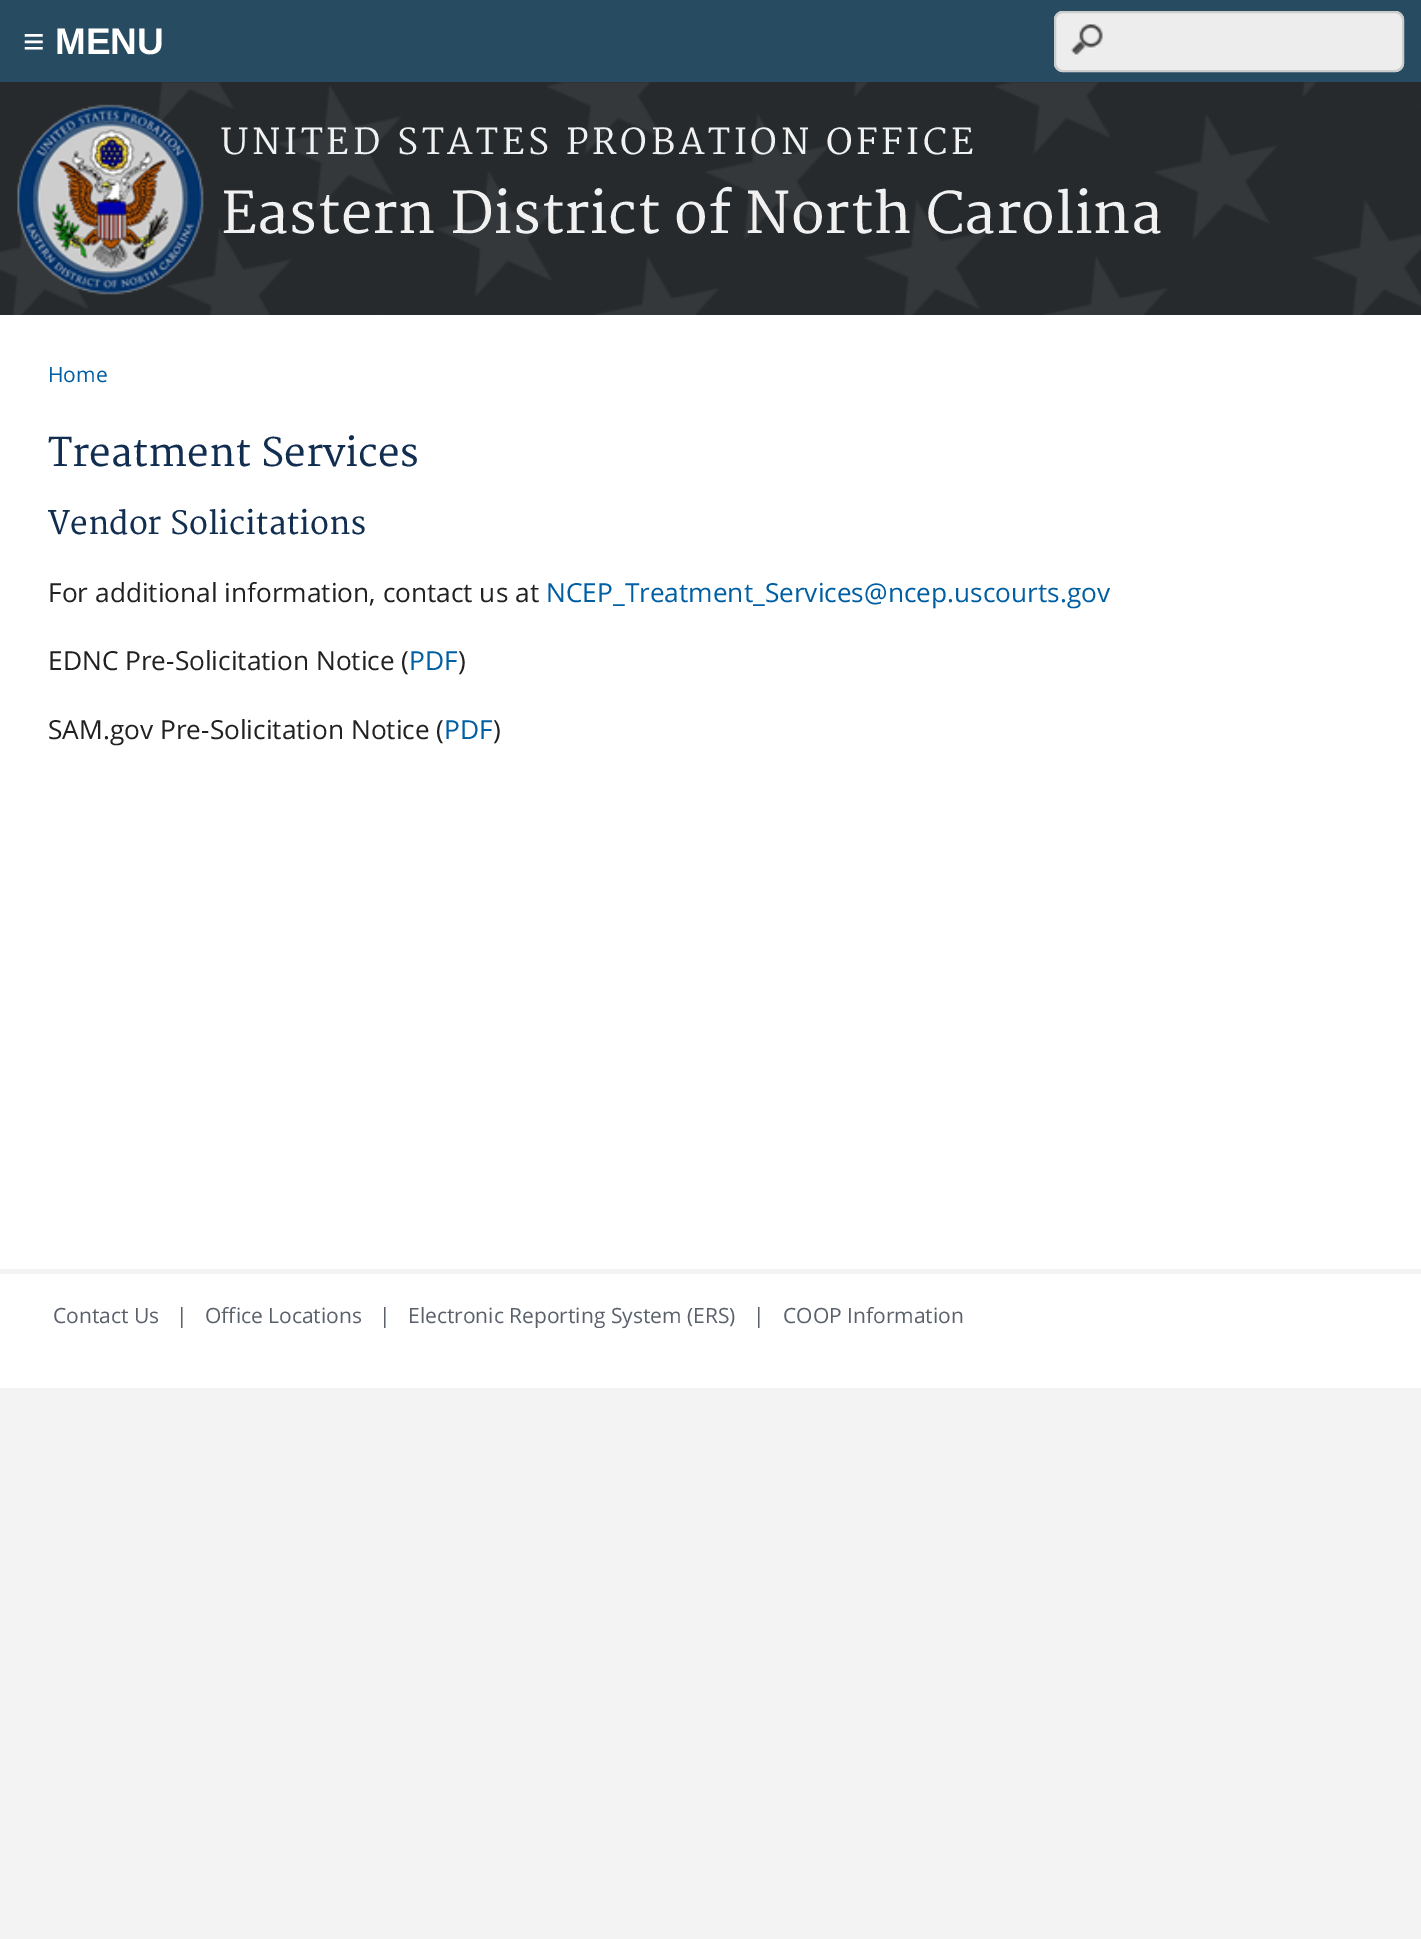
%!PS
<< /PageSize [1421 1939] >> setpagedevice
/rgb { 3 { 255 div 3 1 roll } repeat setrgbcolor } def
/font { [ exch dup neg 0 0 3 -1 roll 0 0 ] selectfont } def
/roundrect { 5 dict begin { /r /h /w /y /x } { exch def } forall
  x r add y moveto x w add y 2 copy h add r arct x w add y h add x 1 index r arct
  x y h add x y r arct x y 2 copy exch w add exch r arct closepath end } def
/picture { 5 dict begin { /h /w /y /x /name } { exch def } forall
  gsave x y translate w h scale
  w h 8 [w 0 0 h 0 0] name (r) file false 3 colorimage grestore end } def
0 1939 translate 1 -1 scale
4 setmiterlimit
243 243 243 rgb
0 0 1421 1939 rectfill
[
  [0 0 1421 82 39 75 97]
  [0 315 1421 1073 255 255 255]
  [0 82 1421 233 38 42 45]
] { aload pop rgb rectfill } forall
(img/1.rgb) 0 82 1421 233 picture
237 237 237 rgb
1054 11 350 61 9 roundrect fill
(img/2.rgb) 1071 24 32 32 picture
204 204 204 rgb
2 setlinewidth
1055 12 348 59 8 roundrect stroke
(img/3.rgb) 17 104 187 191 picture
243 243 243 rgb
0 1269 1421 5 rectfill
/LiberationSans-Bold 37 font
255 255 255 rgb
23 54 moveto (≡ MENU) show
/Merriweather-Regular 35 font
241 241 241 rgb
221 154 moveto 3.85 0 (UNITED STATES PROBATION OFFICE) ashow
/Merriweather-Regular 56 font
221 233 moveto (Eastern District of North Carolina) show
/OpenSans-Regular 21 font
0 94 162 rgb
48 382 moveto (Home) show
/Merriweather-Regular 38.5 font
17 46 81 rgb
48 466 moveto (Treatment Services) show
/Merriweather-Regular 31.5 font
48 534 moveto (Vendor Solicitations) show
/OpenSans-Regular 26.25 font
33 33 33 rgb
48 602 moveto (For additional information, contact us at) show
0 94 162 rgb
546 602 moveto (NCEP_Treatment_Services@ncep.uscourts.gov) show
33 33 33 rgb
48 670 moveto (EDNC Pre-Solicitation Notice \() show
0 94 162 rgb
409 670 moveto (PDF) show
33 33 33 rgb
458 670 moveto (\)) show
48 739 moveto (SAM.gov Pre-Solicitation Notice \() show
0 94 162 rgb
444 739 moveto (PDF) show
33 33 33 rgb
493 739 moveto (\)) show
/OpenSans-Regular 21 font
91 97 107 rgb
[
  [(Contact Us) 53 1323]
  [(|) 176 1323]
  [(Office Locations) 205 1323]
  [(|) 379 1323]
  [(Electronic Reporting System \(ERS\)) 408 1323]
  [(|) 753 1323]
  [(COOP Information) 783 1323]
] { aload pop moveto show } forall
showpage
